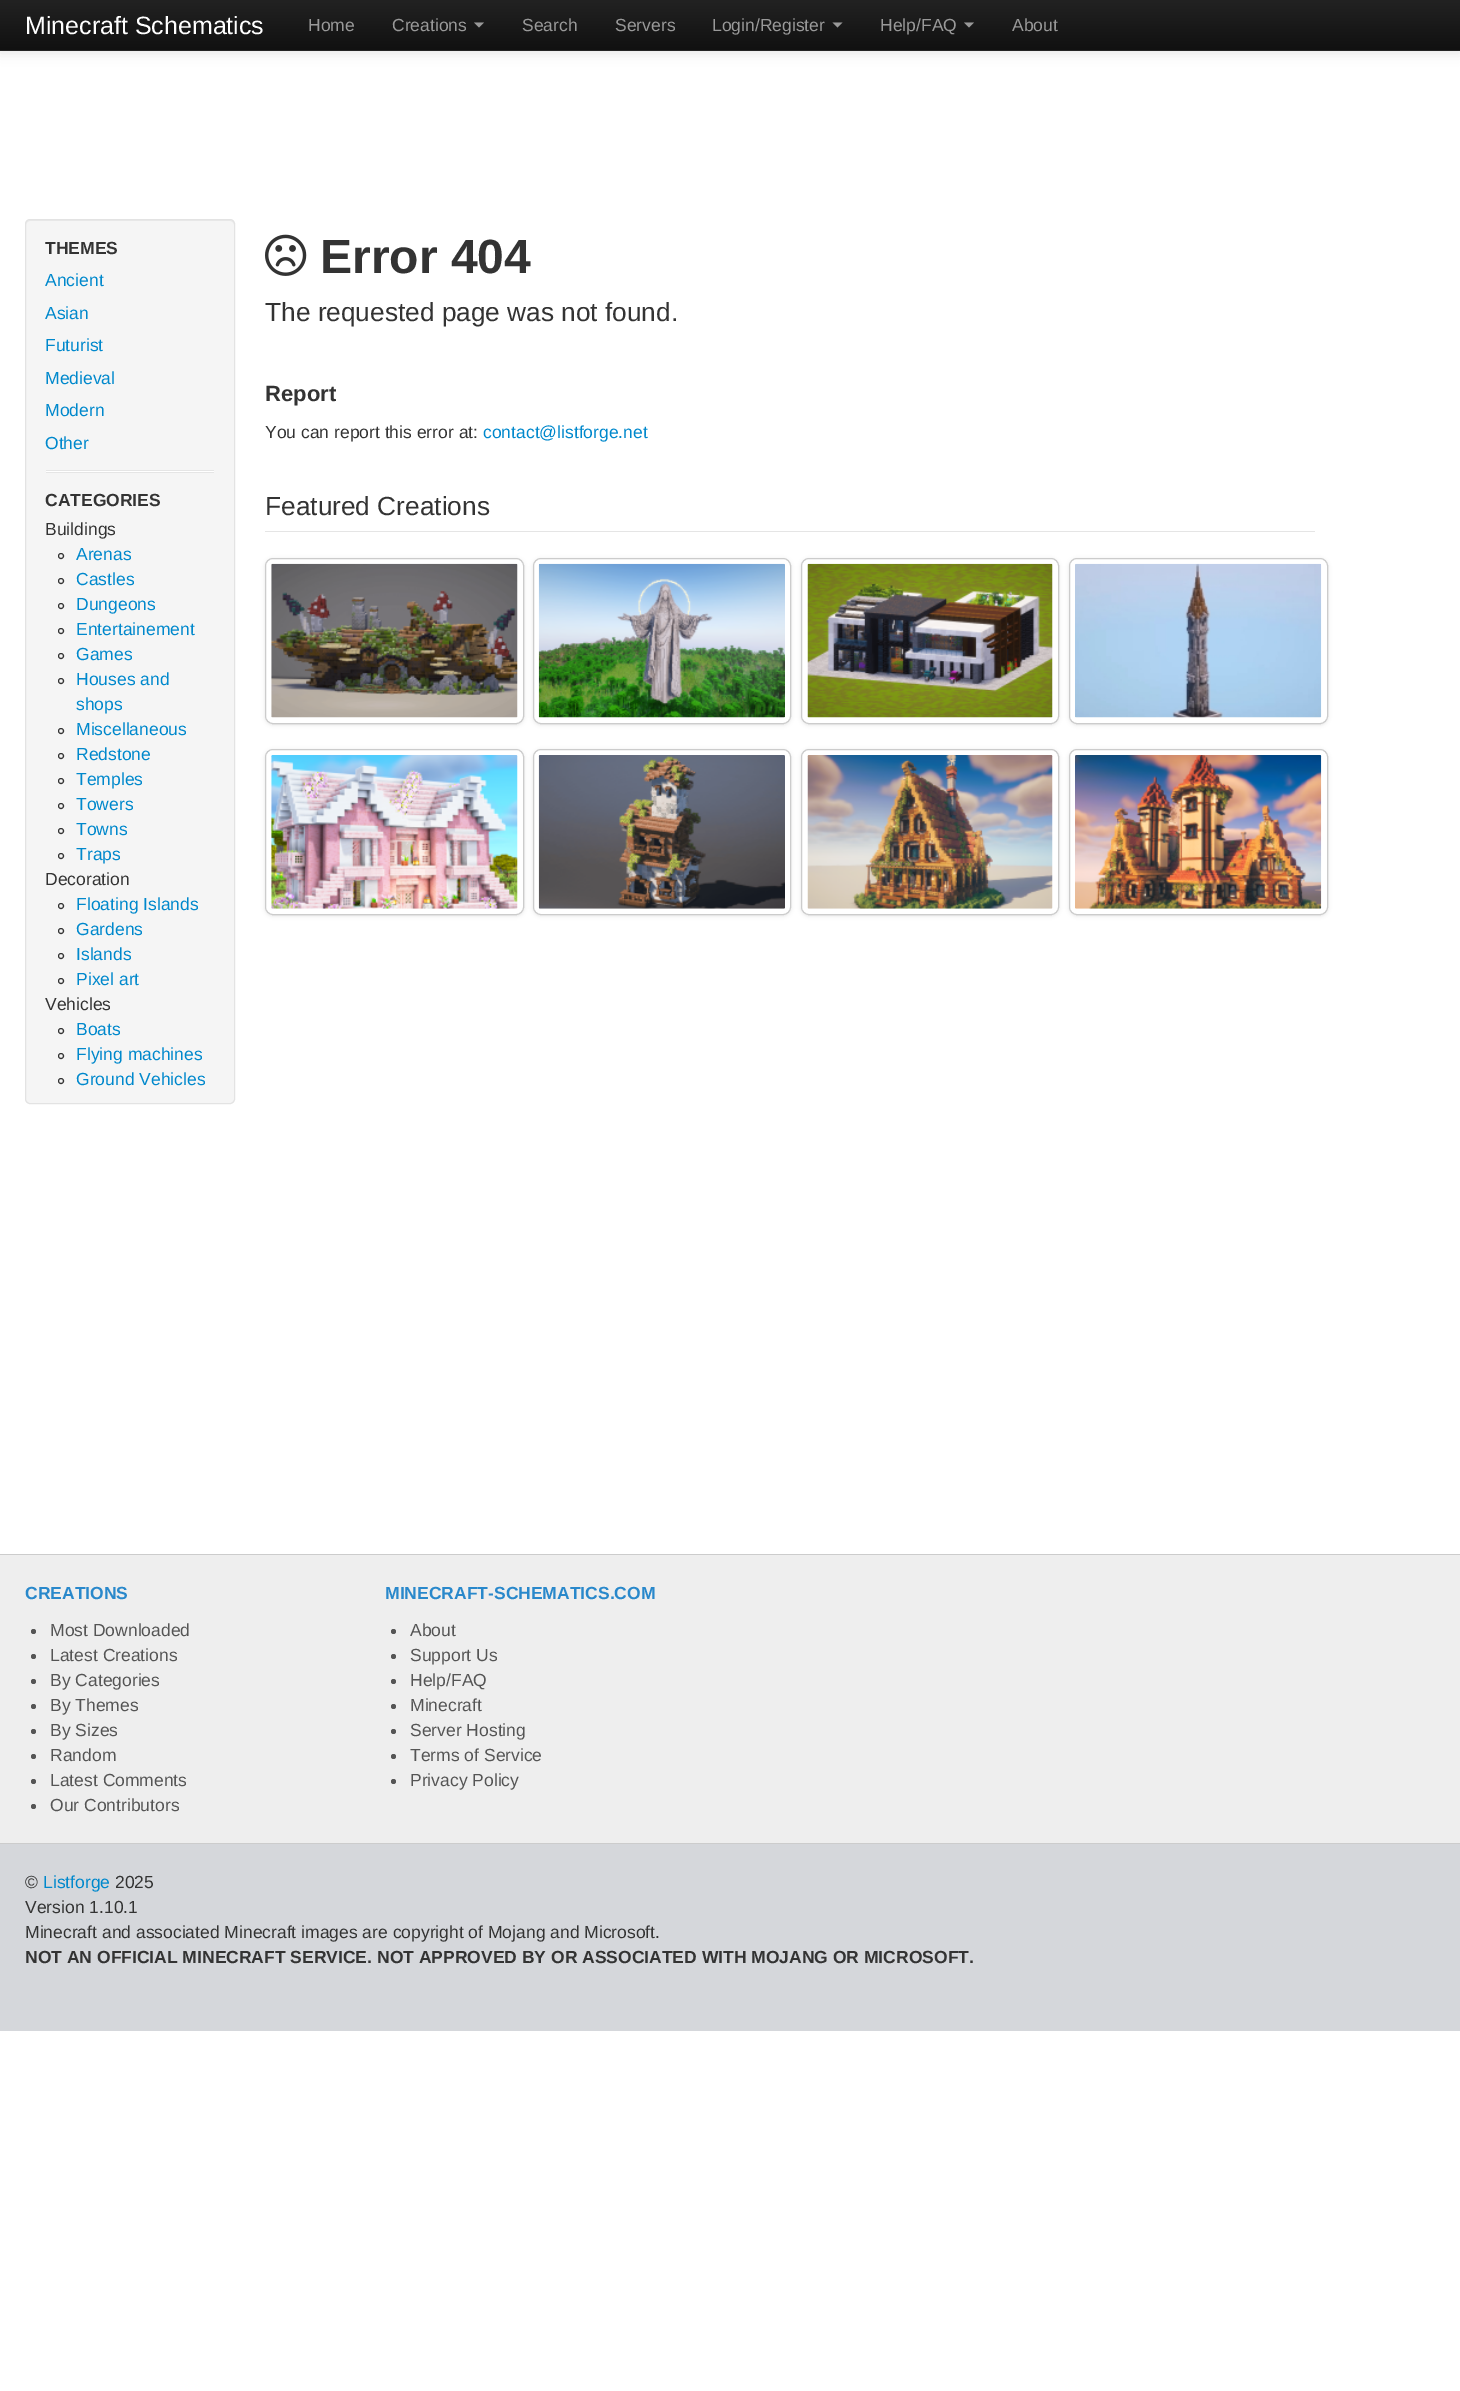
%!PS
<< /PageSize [1460 2391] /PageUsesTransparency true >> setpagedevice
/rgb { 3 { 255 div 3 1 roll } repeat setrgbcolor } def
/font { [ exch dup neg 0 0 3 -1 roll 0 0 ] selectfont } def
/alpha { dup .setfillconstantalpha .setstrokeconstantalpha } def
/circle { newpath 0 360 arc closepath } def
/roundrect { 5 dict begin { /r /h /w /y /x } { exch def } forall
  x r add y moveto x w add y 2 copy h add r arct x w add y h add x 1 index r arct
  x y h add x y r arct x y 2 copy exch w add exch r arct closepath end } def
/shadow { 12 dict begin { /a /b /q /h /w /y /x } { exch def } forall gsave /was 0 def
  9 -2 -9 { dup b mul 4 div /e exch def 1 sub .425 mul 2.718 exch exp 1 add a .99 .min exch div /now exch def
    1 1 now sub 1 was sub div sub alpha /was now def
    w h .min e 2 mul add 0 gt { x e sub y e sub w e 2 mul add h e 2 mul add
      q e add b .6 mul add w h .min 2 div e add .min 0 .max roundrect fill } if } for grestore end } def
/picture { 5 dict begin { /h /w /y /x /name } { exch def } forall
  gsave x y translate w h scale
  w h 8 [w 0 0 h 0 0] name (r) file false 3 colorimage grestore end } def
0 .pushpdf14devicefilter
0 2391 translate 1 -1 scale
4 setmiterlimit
255 255 255 rgb
0 0 1460 2391 rectfill
0 0 0 rgb
0 1 1460 52 0 6 0.1 shadow
gsave 0 0 moveto 1460 0 lineto 1460 50 lineto 0 50 lineto closepath clip newpath
<< /ShadingType 2 /ColorSpace /DeviceRGB /Coords [730 0 730 50] /Extend [true true] /Function << /FunctionType 2 /Domain [0 1] /C0 [0.133 0.133 0.133] /C1 [0.067 0.067 0.067] /N 1 >> >> shfill grestore
37 37 37 rgb
0 50 1460 1 rectfill
153 153 153 rgb
474 22.5 moveto 484 22.5 lineto 479 27.5 lineto closepath fill
832.5 22.5 moveto 842.5 22.5 lineto 837.5 27.5 lineto closepath fill
964 22.5 moveto 974 22.5 lineto 969 27.5 lineto closepath fill
245 245 245 rgb
25 219 210 885 5 roundrect fill
233 233 233 rgb
30 221 moveto 230 221 lineto 232 221 234 223 234 225 curveto 234 224 lineto 234 222 232 220 230 220 curveto 30 220 lineto 28 220 26 222 26 224 curveto 26 225 lineto 26 223 28 221 30 221 curveto closepath fill
227 227 227 rgb
25.5 219.5 209 884 4.5 roundrect stroke
229 229 229 rgb
46 470 168 3 rectfill
255 255 255 rgb
46 471 168 1 rectfill
51 51 51 rgb
61 556 2.5 circle stroke
61 581 2.5 circle stroke
61 606 2.5 circle stroke
61 631 2.5 circle stroke
61 656 2.5 circle stroke
61 681 2.5 circle stroke
61 731 2.5 circle stroke
61 756 2.5 circle stroke
61 781 2.5 circle stroke
61 806 2.5 circle stroke
61 831 2.5 circle stroke
61 856 2.5 circle stroke
61 906 2.5 circle stroke
61 931 2.5 circle stroke
61 956 2.5 circle stroke
61 981 2.5 circle stroke
61 1031 2.5 circle stroke
61 1056 2.5 circle stroke
61 1081 2.5 circle stroke
(img/1.rgb) 265 234 42 42 picture
229 229 229 rgb
265 531 1050 1 rectfill
0 0 0 rgb
265 559 259 166 8 2 0.1 shadow
255 255 255 rgb
265 558 259 166 8 roundrect fill
0.2 alpha
0 0 0 rgb
265.5 558.5 258 165 7.5 roundrect stroke
1 alpha
(img/2.rgb) 271 563 247 155 picture
533 559 258 166 8 2 0.1 shadow
255 255 255 rgb
533 558 258 166 8 roundrect fill
0.2 alpha
0 0 0 rgb
533.5 558.5 257 165 7.5 roundrect stroke
1 alpha
(img/3.rgb) 538 563 247 155 picture
801 559 258 166 8 2 0.1 shadow
255 255 255 rgb
801 558 258 166 8 roundrect fill
0.2 alpha
0 0 0 rgb
801.5 558.5 257 165 7.5 roundrect stroke
1 alpha
(img/4.rgb) 807 563 246 155 picture
1069 559 259 166 8 2 0.1 shadow
255 255 255 rgb
1069 558 259 166 8 roundrect fill
0.2 alpha
0 0 0 rgb
1069.5 558.5 258 165 7.5 roundrect stroke
1 alpha
(img/5.rgb) 1075 563 247 155 picture
265 750 259 166 8 2 0.1 shadow
255 255 255 rgb
265 749 259 166 8 roundrect fill
0.2 alpha
0 0 0 rgb
265.5 749.5 258 165 7.5 roundrect stroke
1 alpha
(img/6.rgb) 271 755 247 154 picture
533 750 258 166 8 2 0.1 shadow
255 255 255 rgb
533.5 749.5 257 165 7.5 roundrect gsave fill grestore
204 204 204 rgb
stroke
(img/7.rgb) 538 755 247 154 picture
0 0 0 rgb
801 750 258 166 8 2 0.1 shadow
255 255 255 rgb
801 749 258 166 8 roundrect fill
0.2 alpha
0 0 0 rgb
801.5 749.5 257 165 7.5 roundrect stroke
1 alpha
(img/8.rgb) 807 755 246 154 picture
1069 750 259 166 8 2 0.1 shadow
255 255 255 rgb
1069 749 259 166 8 roundrect fill
0.2 alpha
0 0 0 rgb
1069.5 749.5 258 165 7.5 roundrect stroke
1 alpha
(img/9.rgb) 1075 755 247 154 picture
[
  [0 1555 1460 288 238 238 238]
  [0 1554 1460 1 204 204 204]
  [0 1843 1460 1 204 204 204]
] { aload pop rgb rectfill } forall
85 85 85 rgb
33.5 1631.5 2.5 circle fill
33.5 1656.5 2.5 circle fill
33.5 1681.5 2.5 circle fill
33.5 1706.5 2.5 circle fill
33.5 1731.5 2.5 circle fill
33.5 1756.5 2.5 circle fill
33.5 1781.5 2.5 circle fill
33.5 1806.5 2.5 circle fill
393.5 1631.5 2.5 circle fill
393.5 1656.5 2.5 circle fill
393.5 1681.5 2.5 circle fill
393.5 1706.5 2.5 circle fill
393.5 1731.5 2.5 circle fill
393.5 1756.5 2.5 circle fill
393.5 1781.5 2.5 circle fill
213 215 219 rgb
0 1844 1460 187 rectfill
/LiberationSans-Regular 25 font
255 255 255 rgb
25 34 moveto (Minecraft Schematics) show
/LiberationSans-Regular 17.5 font
153 153 153 rgb
[
  [(Home) 308 31]
  [(Creations) 392 31]
  [(Search) 522 31]
  [(Servers) 615 31]
  [(Login/Register) 712 31]
  [(Help/FAQ) 880 31]
  [(About) 1012 31]
] { aload pop moveto show } forall
/LiberationSans-Bold 17.5 font
51 51 51 rgb
45 254 moveto (THEMES) show
/LiberationSans-Regular 17.5 font
0 136 204 rgb
[
  [(Ancient) 45 286]
  [(Asian) 45 319]
  [(Futurist) 45 351]
  [(Medieval) 45 384]
  [(Modern) 45 416]
  [(Other) 45 449]
] { aload pop moveto show } forall
/LiberationSans-Bold 17.5 font
51 51 51 rgb
45 506 moveto (CATEGORIES) show
/LiberationSans-Regular 17.5 font
45 535 moveto (Buildings) show
0 136 204 rgb
[
  [(Arenas) 76 560]
  [(Castles) 76 585]
  [(Dungeons) 76 610]
  [(Entertainement) 76 635]
  [(Games) 76 660]
  [(Houses and) 76 685]
  [(shops) 76 710]
  [(Miscellaneous) 76 735]
  [(Redstone) 76 760]
  [(Temples) 76 785]
  [(Towers) 76 810]
  [(Towns) 76 835]
  [(Traps) 76 860]
] { aload pop moveto show } forall
51 51 51 rgb
45 885 moveto (Decoration) show
0 136 204 rgb
[
  [(Floating Islands) 76 910]
  [(Gardens) 76 935]
  [(Islands) 76 960]
  [(Pixel art) 76 985]
] { aload pop moveto show } forall
51 51 51 rgb
45 1010 moveto (Vehicles) show
0 136 204 rgb
[
  [(Boats) 76 1035]
  [(Flying machines) 76 1060]
  [(Ground Vehicles) 76 1085]
] { aload pop moveto show } forall
/LiberationSans-Bold 48 font
51 51 51 rgb
320 273 moveto (Error 404) show
/LiberationSans-Regular 26.25 font
265 321 moveto (The requested page was not found.) show
/LiberationSans-Bold 22 font
265 401 moveto (Report) show
/LiberationSans-Regular 17.5 font
265 438 moveto (You can report this error at:) show
0 136 204 rgb
483 438 moveto (contact@listforge.net) show
/LiberationSans-Regular 26.25 font
51 51 51 rgb
265 515 moveto (Featured Creations) show
/LiberationSans-Bold 17.5 font
41 136 203 rgb
25 1599 moveto (CREATIONS) show
/LiberationSans-Regular 17.5 font
85 85 85 rgb
[
  [(Most Downloaded) 50 1636]
  [(Latest Creations) 50 1661]
  [(By Categories) 50 1686]
  [(By Themes) 50 1711]
  [(By Sizes) 50 1736]
  [(Random) 50 1761]
  [(Latest Comments) 50 1786]
  [(Our Contributors) 50 1811]
] { aload pop moveto show } forall
/LiberationSans-Bold 17.5 font
41 136 203 rgb
385 1599 moveto (MINECRAFT-SCHEMATICS.COM) show
/LiberationSans-Regular 17.5 font
85 85 85 rgb
[
  [(About) 410 1636]
  [(Support Us) 410 1661]
  [(Help/FAQ) 410 1686]
  [(Minecraft) 410 1711]
  [(Server Hosting) 410 1736]
  [(Terms of Service) 410 1761]
  [(Privacy Policy) 410 1786]
] { aload pop moveto show } forall
51 51 51 rgb
25 1888 moveto (©) show
0 136 204 rgb
43 1888 moveto (Listforge) show
51 51 51 rgb
[
  [(2025) 115 1888]
  [(Version 1.10.1) 25 1913]
  [(Minecraft and associated Minecraft images are copyright of Mojang and Microsoft.) 25 1938]
] { aload pop moveto show } forall
/LiberationSans-Bold 17.5 font
25 1963 moveto (NOT AN OFFICIAL MINECRAFT SERVICE. NOT APPROVED BY OR ASSOCIATED WITH MOJANG OR MICROSOFT.) show
.poppdf14devicefilter showpage
